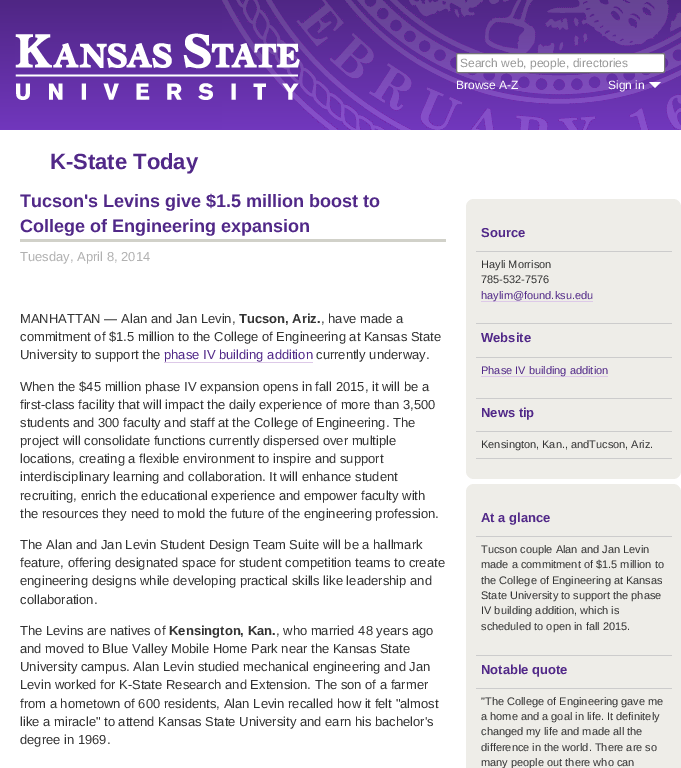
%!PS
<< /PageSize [681 768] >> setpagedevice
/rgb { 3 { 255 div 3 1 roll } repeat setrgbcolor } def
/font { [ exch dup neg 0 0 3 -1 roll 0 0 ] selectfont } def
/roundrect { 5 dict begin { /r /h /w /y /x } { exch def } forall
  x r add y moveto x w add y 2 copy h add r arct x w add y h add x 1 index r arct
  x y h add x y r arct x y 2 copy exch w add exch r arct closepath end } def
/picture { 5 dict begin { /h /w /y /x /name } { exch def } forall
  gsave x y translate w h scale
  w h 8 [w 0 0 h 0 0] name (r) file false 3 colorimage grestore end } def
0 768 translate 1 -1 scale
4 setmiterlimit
255 255 255 rgb
0 0 681 768 rectfill
gsave 0 0 moveto 681 0 lineto 681 130 lineto 0 130 lineto closepath clip newpath
<< /ShadingType 2 /ColorSpace /DeviceRGB /Coords [341 0 341 130] /Extend [true true] /Function << /FunctionType 2 /Domain [0 1] /C0 [0.31 0.149 0.518] /C1 [0.443 0.216 0.741] /N 1 >> >> shfill grestore
(img/1.rgb) 222 0 459 130 picture
(img/2.rgb) 15 33 285 67 picture
456.5 53.5 208 19 1.5 roundrect gsave fill grestore
118 118 118 rgb
stroke
255 255 255 rgb
649 82 moveto 661 82 lineto 655 88 lineto closepath fill
209 209 201 rgb
20 239 426 3 rectfill
221 201 232 rgb
164 362 149 1 rectfill
238 237 232 rgb
466 199 215 280 8 roundrect fill
[
  [476 251 196 1 204 204 204]
  [476 323 196 1 204 204 204]
  [481 301 112 1 221 201 232]
  [476 357 196 1 204 204 204]
  [476 398 196 1 204 204 204]
  [481 376 127 1 221 201 232]
  [476 431 196 1 204 204 204]
  [476 458 196 1 204 204 204]
] { aload pop rgb rectfill } forall
238 237 232 rgb
466 484 215 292 8 roundrect fill
[
  [476 536 196 1 204 204 204]
  [476 655 196 1 204 204 204]
  [476 688 196 1 204 204 204]
] { aload pop rgb rectfill } forall
/LiberationSans-Regular 12 font
153 153 153 rgb
460 67 moveto (Search web, people, directories) show
255 255 255 rgb
456 89 moveto (Browse A-Z) show
608 89 moveto (Sign in) show
/LiberationSans-Bold 22 font
81 40 136 rgb
50 169 moveto (K-State Today) show
/LiberationSans-Bold 18 font
20 207 moveto (Tucson's Levins give $1.5 million boost to) show
20 232 moveto (College of Engineering expansion) show
/LiberationSans-Regular 13 font
177 177 177 rgb
20 261 moveto (Tuesday, April 8, 2014) show
51 51 51 rgb
20 323 moveto (MANHATTAN — Alan and Jan Levin,) show
/LiberationSans-Bold 13 font
239 323 moveto (Tucson, Ariz.) show
/LiberationSans-Regular 13 font
[
  [(, have made a) 321 323]
  [(commitment of $1.5 million to the College of Engineering at Kansas State) 20 341]
  [(University to support the) 20 359]
] { aload pop moveto show } forall
81 40 136 rgb
164 359 moveto (phase IV building addition) show
51 51 51 rgb
[
  [(currently underway.) 316 359]
  [(When the $45 million phase IV expansion opens in fall 2015, it will be a) 20 391]
  [(first-class facility that will impact the daily experience of more than 3,500) 20 409]
  [(students and 300 faculty and staff at the College of Engineering. The) 20 427]
  [(project will consolidate functions currently dispersed over multiple) 20 445]
  [(locations, creating a flexible environment to inspire and support) 20 463]
  [(interdisciplinary learning and collaboration. It will enhance student) 20 481]
  [(recruiting, enrich the educational experience and empower faculty with) 20 500]
  [(the resources they need to mold the future of the engineering profession.) 20 518]
  [(The Alan and Jan Levin Student Design Team Suite will be a hallmark) 20 549]
  [(feature, offering designated space for student competition teams to create) 20 567]
  [(engineering designs while developing practical skills like leadership and) 20 585]
  [(collaboration.) 20 604]
  [(The Levins are natives of) 20 635]
] { aload pop moveto show } forall
/LiberationSans-Bold 13 font
169 635 moveto (Kensington, Kan.) show
/LiberationSans-Regular 13 font
[
  [(, who married 48 years ago) 276 635]
  [(and moved to Blue Valley Mobile Home Park near the Kansas State) 20 653]
  [(University campus. Alan Levin studied mechanical engineering and Jan) 20 671]
  [(Levin worked for K-State Research and Extension. The son of a farmer) 20 689]
  [(from a hometown of 600 residents, Alan Levin recalled how it felt "almost) 20 708]
  [(like a miracle" to attend Kansas State University and earn his bachelor's) 20 726]
  [(degree in 1969.) 20 744]
] { aload pop moveto show } forall
/LiberationSans-Bold 13 font
81 40 136 rgb
481 237 moveto (Source) show
/LiberationSans-Regular 11 font
51 51 51 rgb
481 268 moveto (Hayli Morrison) show
481 283 moveto (785-532-7576) show
81 40 136 rgb
481 299 moveto (haylim@found.ksu.edu) show
/LiberationSans-Bold 13 font
481 342 moveto (Website) show
/LiberationSans-Regular 11 font
481 374 moveto (Phase IV building addition) show
/LiberationSans-Bold 13 font
481 417 moveto (News tip) show
/LiberationSans-Regular 11 font
51 51 51 rgb
481 448 moveto (Kensington, Kan., andTucson, Ariz.) show
/LiberationSans-Bold 13 font
81 40 136 rgb
481 522 moveto (At a glance) show
/LiberationSans-Regular 11 font
51 51 51 rgb
[
  [(Tucson couple Alan and Jan Levin) 481 553]
  [(made a commitment of $1.5 million to) 481 568]
  [(the College of Engineering at Kansas) 481 584]
  [(State University to support the phase) 481 599]
  [(IV building addition, which is) 481 614]
  [(scheduled to open in fall 2015.) 481 630]
] { aload pop moveto show } forall
/LiberationSans-Bold 13 font
81 40 136 rgb
481 674 moveto (Notable quote) show
/LiberationSans-Regular 11 font
51 51 51 rgb
[
  [("The College of Engineering gave me) 481 705]
  [(a home and a goal in life. It definitely) 481 720]
  [(changed my life and made all the) 481 735]
  [(difference in the world. There are so) 481 751]
  [(many people out there who can) 481 766]
] { aload pop moveto show } forall
showpage
